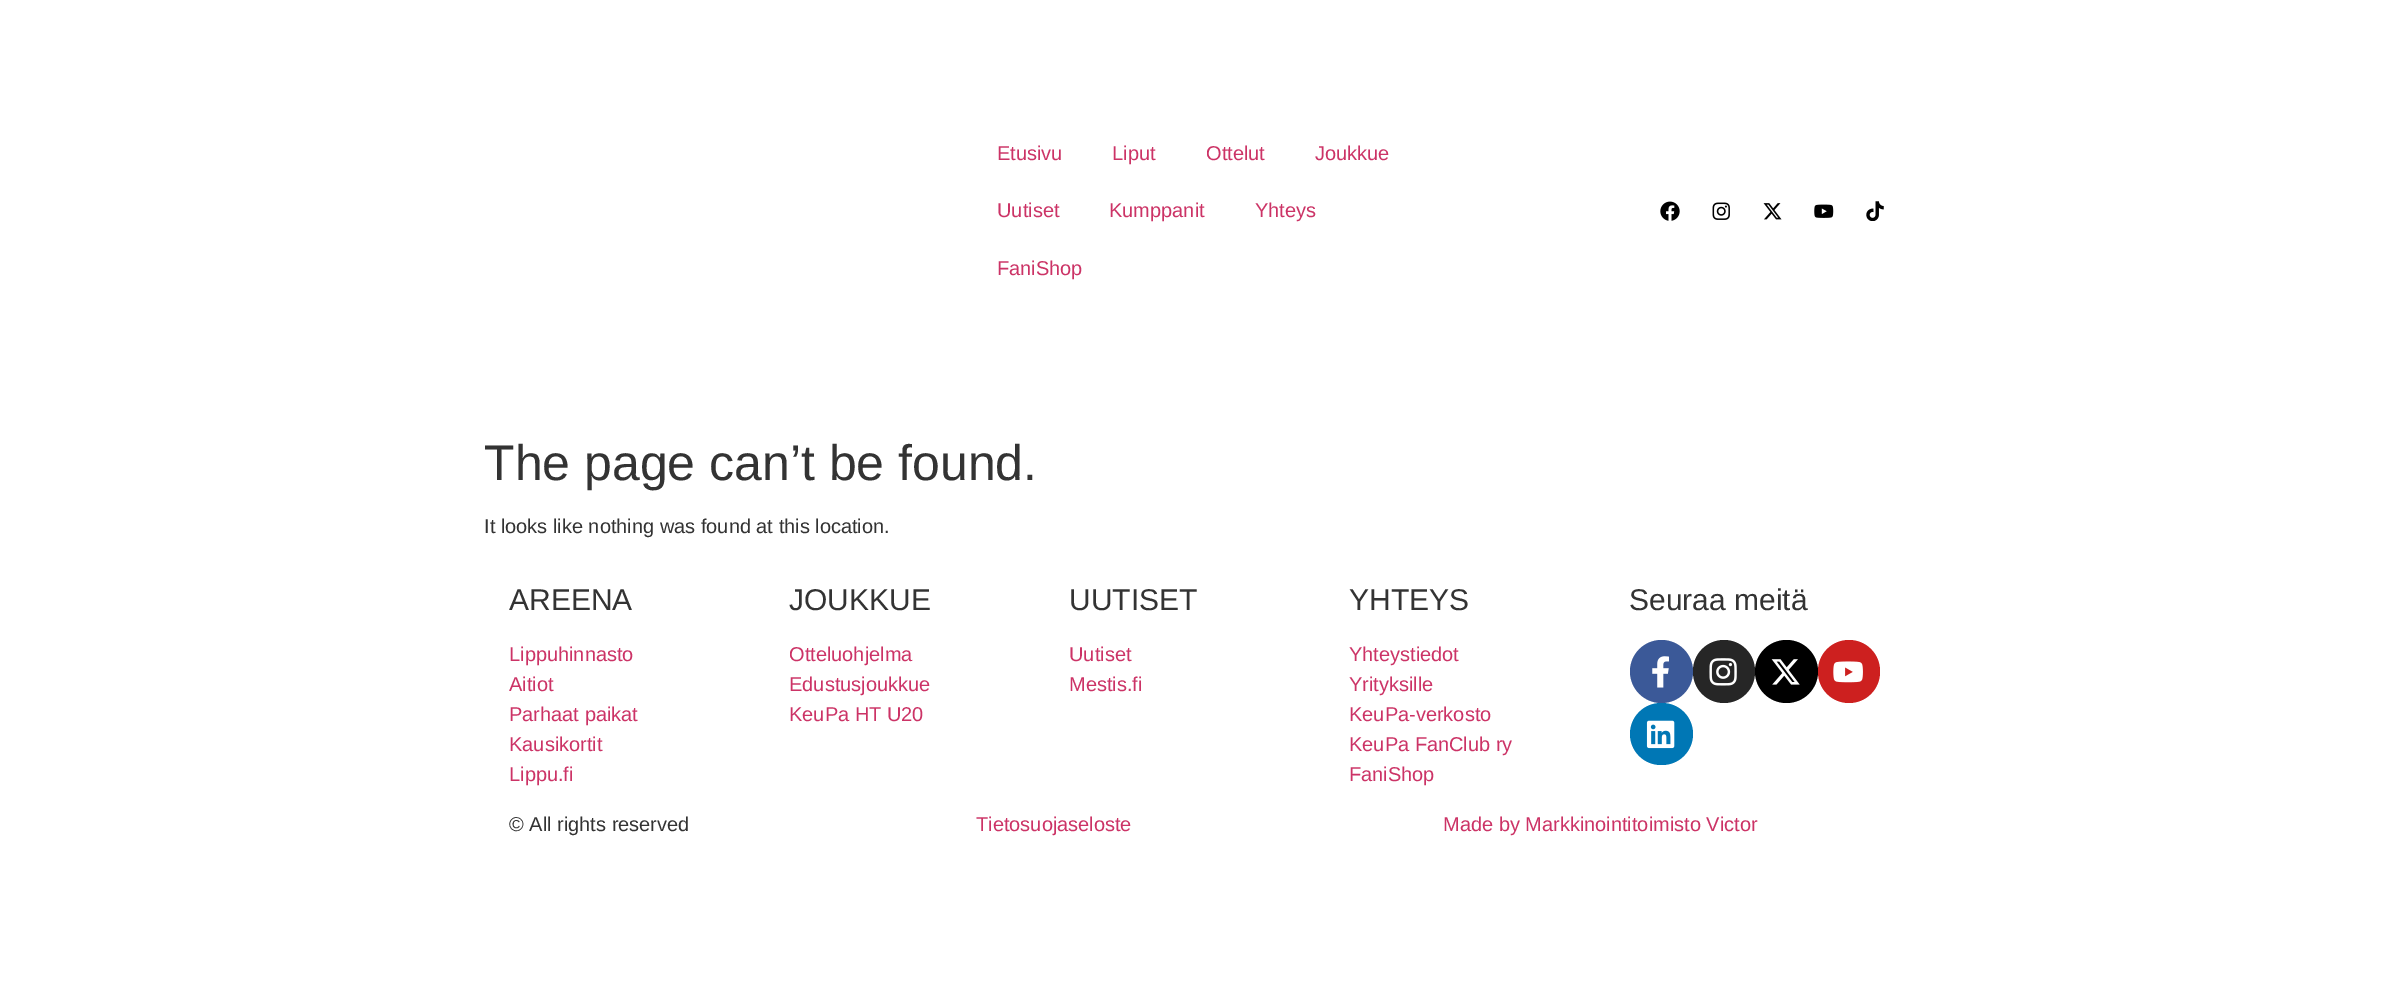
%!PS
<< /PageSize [2393 985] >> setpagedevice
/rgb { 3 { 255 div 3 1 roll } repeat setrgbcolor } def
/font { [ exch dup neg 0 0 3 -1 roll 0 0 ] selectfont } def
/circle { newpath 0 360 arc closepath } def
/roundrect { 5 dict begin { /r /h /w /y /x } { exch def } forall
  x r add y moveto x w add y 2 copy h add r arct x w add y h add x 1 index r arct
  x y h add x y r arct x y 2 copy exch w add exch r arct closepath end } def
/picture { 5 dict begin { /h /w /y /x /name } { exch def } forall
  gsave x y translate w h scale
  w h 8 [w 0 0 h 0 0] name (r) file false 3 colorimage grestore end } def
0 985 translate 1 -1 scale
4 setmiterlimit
255 255 255 rgb
0 0 2393 985 rectfill
(img/1.rgb) 1660 201 20 20 picture
(img/2.rgb) 1712 202 18 18 picture
(img/3.rgb) 1763 203 19 17 picture
(img/4.rgb) 1814 204 20 14 picture
(img/5.rgb) 1866 201 18 20 picture
59 89 152 rgb
1661.5 671.5 31.5 circle fill
(img/6.rgb) 1652 656 17 32 picture
38 38 38 rgb
1693 640 62 63 31 roundrect fill
(img/7.rgb) 1709 658 28 28 picture
0 0 0 rgb
1786.5 671.5 31.5 circle fill
(img/8.rgb) 1771 659 29 26 picture
205 32 31 rgb
1818 640 62 63 31 roundrect fill
(img/9.rgb) 1833 661 30 22 picture
0 119 181 rgb
1630 703 63 62 31 roundrect fill
(img/10.rgb) 1646 720 29 29 picture
/LiberationSans-Regular 20 font
204 51 102 rgb
[
  [(Etusivu) 997 160]
  [(Liput) 1112 160]
  [(Ottelut) 1206 160]
  [(Joukkue) 1315 160]
  [(Uutiset) 997 217]
  [(Kumppanit) 1109 217]
  [(Yhteys) 1255 217]
  [(FaniShop) 997 275]
] { aload pop moveto show } forall
/LiberationSans-Regular 50 font
51 51 51 rgb
484 480 moveto (The page can’t be found.) show
/LiberationSans-Regular 20 font
484 533 moveto (It looks like nothing was found at this location.) show
/LiberationSans-Regular 30 font
509 610 moveto (AREENA) show
/LiberationSans-Regular 20 font
204 51 102 rgb
[
  [(Lippuhinnasto) 509 661]
  [(Aitiot) 509 691]
  [(Parhaat paikat) 509 721]
  [(Kausikortit) 509 751]
  [(Lippu.fi) 509 781]
] { aload pop moveto show } forall
/LiberationSans-Regular 30 font
51 51 51 rgb
789 610 moveto (JOUKKUE) show
/LiberationSans-Regular 20 font
204 51 102 rgb
[
  [(Otteluohjelma) 789 661]
  [(Edustusjoukkue) 789 691]
  [(KeuPa HT U20) 789 721]
] { aload pop moveto show } forall
/LiberationSans-Regular 30 font
51 51 51 rgb
1069 610 moveto (UUTISET) show
/LiberationSans-Regular 20 font
204 51 102 rgb
1069 661 moveto (Uutiset) show
1069 691 moveto (Mestis.fi) show
/LiberationSans-Regular 30 font
51 51 51 rgb
1349 610 moveto (YHTEYS) show
/LiberationSans-Regular 20 font
204 51 102 rgb
[
  [(Yhteystiedot) 1349 661]
  [(Yrityksille) 1349 691]
  [(KeuPa-verkosto) 1349 721]
  [(KeuPa FanClub ry) 1349 751]
  [(FaniShop) 1349 781]
] { aload pop moveto show } forall
/LiberationSans-Regular 30 font
51 51 51 rgb
1629 610 moveto (Seuraa meitä) show
/LiberationSans-Regular 20 font
509 831 moveto (© All rights reserved) show
204 51 102 rgb
976 831 moveto (Tietosuojaseloste) show
1443 831 moveto (Made by Markkinointitoimisto Victor) show
showpage
